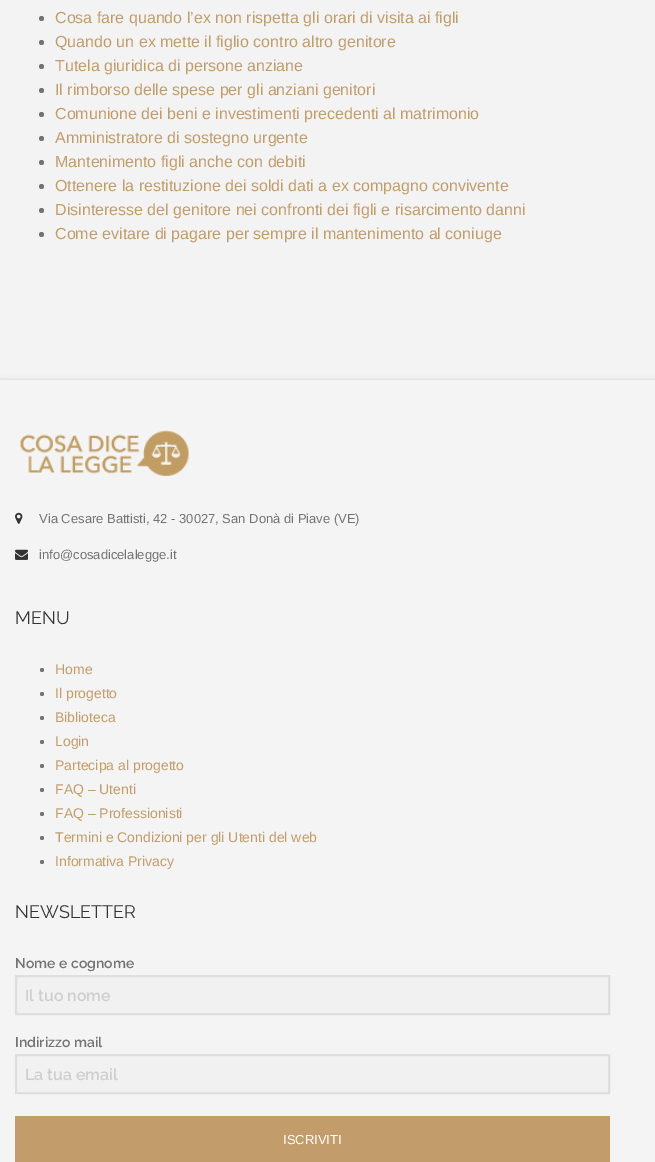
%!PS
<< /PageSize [655 1162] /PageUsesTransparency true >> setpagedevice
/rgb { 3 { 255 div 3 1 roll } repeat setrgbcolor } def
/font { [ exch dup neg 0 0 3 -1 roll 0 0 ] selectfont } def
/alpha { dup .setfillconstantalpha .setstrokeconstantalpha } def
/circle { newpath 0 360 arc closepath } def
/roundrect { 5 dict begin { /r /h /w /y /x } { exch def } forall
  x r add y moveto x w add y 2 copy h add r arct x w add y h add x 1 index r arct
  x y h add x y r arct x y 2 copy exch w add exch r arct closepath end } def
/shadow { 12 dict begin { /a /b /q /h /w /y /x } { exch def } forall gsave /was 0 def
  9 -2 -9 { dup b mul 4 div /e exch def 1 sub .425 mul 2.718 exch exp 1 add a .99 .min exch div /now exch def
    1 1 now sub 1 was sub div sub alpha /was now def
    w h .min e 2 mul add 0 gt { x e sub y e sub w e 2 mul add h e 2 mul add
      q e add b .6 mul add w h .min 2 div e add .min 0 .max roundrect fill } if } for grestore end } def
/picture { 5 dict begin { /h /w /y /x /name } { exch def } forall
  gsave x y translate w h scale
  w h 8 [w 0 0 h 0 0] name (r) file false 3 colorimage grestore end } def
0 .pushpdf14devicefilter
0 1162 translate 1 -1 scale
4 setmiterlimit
243 243 243 rgb
0 0 655 1162 rectfill
115 115 115 rgb
41.5 18.5 2.5 circle fill
41.5 42.5 2.5 circle fill
41.5 66.5 2.5 circle fill
41.5 90.5 2.5 circle fill
41.5 114.5 2.5 circle fill
41.5 138.5 2.5 circle fill
41.5 162.5 2.5 circle fill
41.5 186.5 2.5 circle fill
41.5 210.5 2.5 circle fill
41.5 234.5 2.5 circle fill
77 77 77 rgb
1 380 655 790 0 2.5 0.2 shadow
244 244 244 rgb
0 380 655 782 rectfill
(img/1.rgb) 20 430 169 46 picture
(img/2.rgb) 15 512 8 12 picture
(img/3.rgb) 15 549 13 11 picture
115 115 115 rgb
42 670 2 circle fill
42 694 2 circle fill
42 718 2 circle fill
42 742 2 circle fill
42 766 2 circle fill
42 790 2 circle fill
42 814 2 circle fill
42 838 2 circle fill
42 862 2 circle fill
241 241 241 rgb
16 976 moveto 609 976 lineto 609 1014 lineto 16 1014 lineto closepath gsave fill grestore
222 222 222 rgb
2 setlinewidth
stroke
241 241 241 rgb
16 1055 moveto 609 1055 lineto 609 1093 lineto 16 1093 lineto closepath gsave fill grestore
222 222 222 rgb
stroke
194 156 106 rgb
15 1116 595 46 rectfill
/LiberationSans-Regular 16 font
[
  [(Cosa fare quando l’ex non rispetta gli orari di visita ai figli) 55 23]
  [(Quando un ex mette il figlio contro altro genitore) 55 47]
  [(Tutela giuridica di persone anziane) 55 71]
  [(Il rimborso delle spese per gli anziani genitori) 55 95]
  [(Comunione dei beni e investimenti precedenti al matrimonio) 55 119]
  [(Amministratore di sostegno urgente) 55 143]
  [(Mantenimento figli anche con debiti) 55 167]
  [(Ottenere la restituzione dei soldi dati a ex compagno convivente) 55 191]
  [(Disinteresse del genitore nei confronti dei figli e risarcimento danni) 55 215]
  [(Come evitare di pagare per sempre il mantenimento al coniuge) 55 239]
] { aload pop moveto show } forall
/LiberationSans-Regular 13 font
115 115 115 rgb
39 523 moveto (Via Cesare Battisti, 42 - 30027, San Donà di Piave \(VE\)) show
39 559 moveto (info@cosadicelalegge.it) show
/Raleway-Regular 18 font
51 51 51 rgb
15 624 moveto (MENU) show
/LiberationSans-Regular 14 font
194 156 106 rgb
[
  [(Home) 55 674]
  [(Il progetto) 55 698]
  [(Biblioteca) 55 722]
  [(Login) 55 746]
  [(Partecipa al progetto) 55 770]
  [(FAQ – Utenti) 55 794]
  [(FAQ – Professionisti) 55 818]
  [(Termini e Condizioni per gli Utenti del web) 55 842]
  [(Informativa Privacy) 55 866]
] { aload pop moveto show } forall
/Raleway-Regular 18 font
51 51 51 rgb
15 918 moveto (NEWSLETTER) show
/Raleway-SemiBold 14 font
115 115 115 rgb
15 968 moveto (Nome e cognome) show
/Raleway-SemiBold 16 font
206 206 206 rgb
25 1001 moveto (Il tuo nome) show
/Raleway-SemiBold 14 font
115 115 115 rgb
15 1047 moveto (Indirizzo mail) show
/Raleway-SemiBold 16 font
206 206 206 rgb
25 1080 moveto (La tua email) show
/LiberationSans-Regular 13 font
255 255 255 rgb
283 1144 moveto (ISCRIVITI) show
.poppdf14devicefilter showpage
